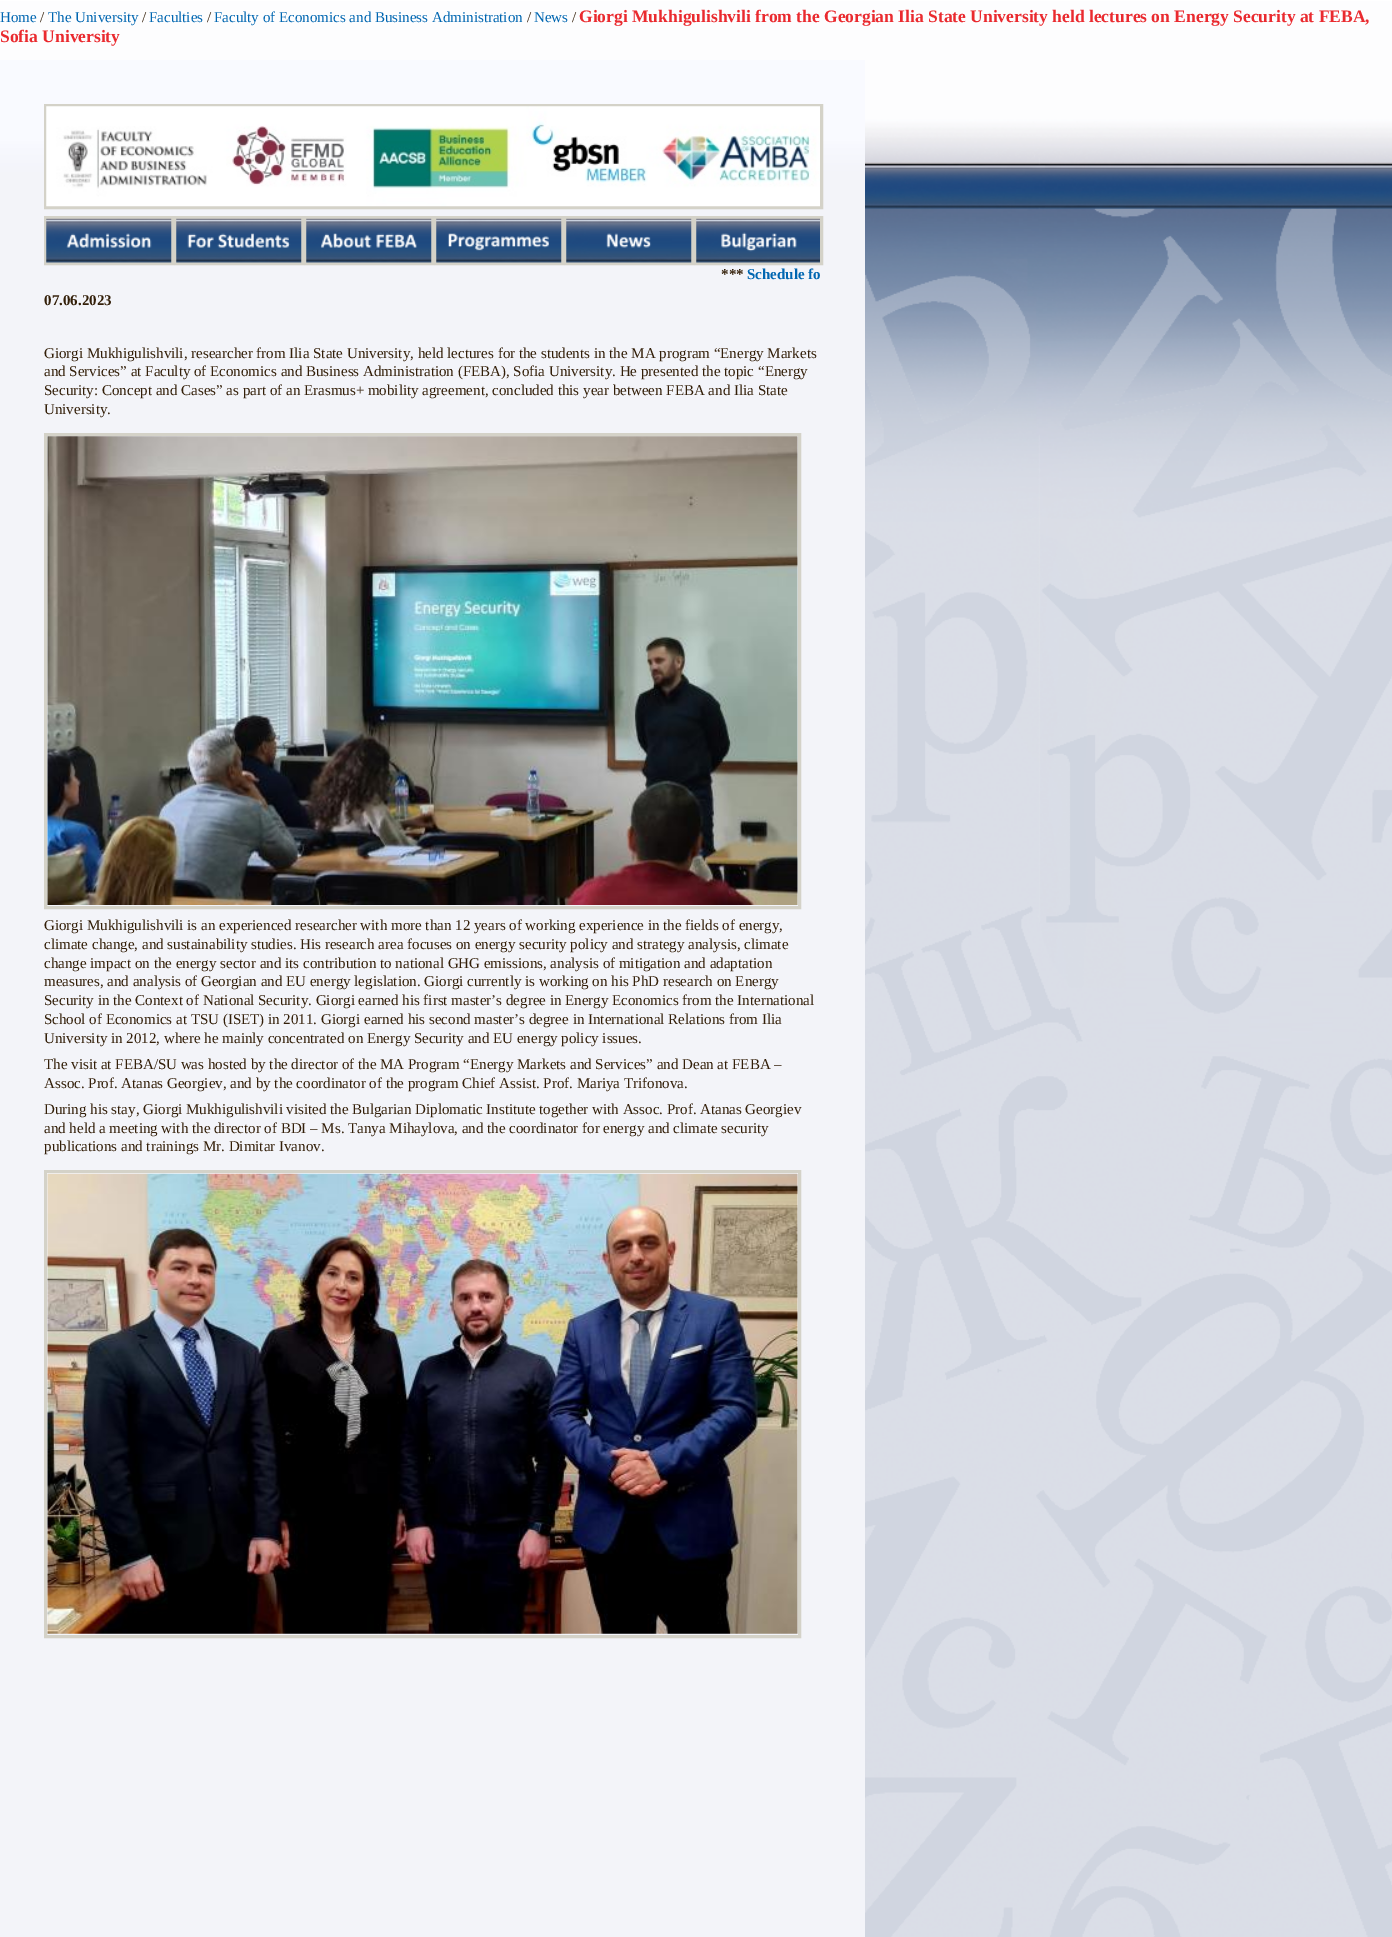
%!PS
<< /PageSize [1392 1937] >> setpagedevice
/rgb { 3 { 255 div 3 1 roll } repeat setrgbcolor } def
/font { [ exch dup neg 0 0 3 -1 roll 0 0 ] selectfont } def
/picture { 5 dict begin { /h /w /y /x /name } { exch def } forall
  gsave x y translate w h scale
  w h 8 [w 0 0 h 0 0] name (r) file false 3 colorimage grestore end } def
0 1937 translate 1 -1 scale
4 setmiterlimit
255 255 255 rgb
0 0 1392 1937 rectfill
(img/1.rgb) 0 0 1392 1937 picture
gsave 0 60 moveto 865 60 lineto 865 1937 lineto 0 1937 lineto closepath clip newpath
<< /ShadingType 2 /ColorSpace /DeviceRGB /Coords [432 60 433 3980] /Extend [true true] /Function << /FunctionType 3 /Domain [0 1] /Functions [<< /FunctionType 2 /Domain [0 1] /C0 [0.976 0.98 1] /C1 [0.976 0.98 1] /N 1 >> << /FunctionType 2 /Domain [0 1] /C0 [0.976 0.98 1] /C1 [0.953 0.957 0.976] /N 1 >> << /FunctionType 2 /Domain [0 1] /C0 [0.953 0.957 0.976] /C1 [0.953 0.957 0.976] /N 1 >>] /Bounds [0.02 0.03] /Encode [0 1 0 1 0 1] >> >> shfill grestore
212 210 200 rgb
3 setlinewidth
45.5 105.5 776 102 rectstroke
(img/2.rgb) 46 106 774 101 picture
45.5 217.5 127 46 rectstroke
(img/3.rgb) 46 218 126 45 picture
175.5 217.5 127 46 rectstroke
(img/4.rgb) 176 218 126 45 picture
305.5 217.5 127 46 rectstroke
(img/5.rgb) 306 218 126 45 picture
435.5 217.5 127 46 rectstroke
(img/6.rgb) 436 218 126 45 picture
565.5 217.5 127 46 rectstroke
(img/7.rgb) 566 218 126 45 picture
695.5 217.5 126 46 rectstroke
(img/8.rgb) 696 218 124 45 picture
45.5 434.5 754 473 rectstroke
(img/9.rgb) 47 436 751 469 picture
45.5 1171.5 754 465 rectstroke
(img/10.rgb) 47 1173 751 461 picture
/LiberationSerif-Regular 15 font
0 102 177 rgb
0 22 moveto (Home) show
51 31 9 rgb
40 22 moveto (/) show
0 102 177 rgb
48 22 moveto (The University) show
51 31 9 rgb
142 22 moveto (/) show
0 102 177 rgb
149 22 moveto (Faculties) show
51 31 9 rgb
207 22 moveto (/) show
0 102 177 rgb
214 22 moveto (Faculty of Economics and Business Administration) show
51 31 9 rgb
527 22 moveto (/) show
0 102 177 rgb
534 22 moveto (News) show
51 31 9 rgb
572 22 moveto (/) show
/LiberationSerif-Bold 17.5 font
234 42 47 rgb
579 22 moveto (Giorgi Mukhigulishvili from the Georgian Ilia State University held lectures on Еnergy Security at FEBA,) show
0 42 moveto (Sofia University) show
/LiberationSerif-Bold 15 font
51 31 9 rgb
721 279 moveto (***) show
0 102 177 rgb
747 279 moveto (Schedule fo) show
51 31 9 rgb
44 305 moveto (07.06.2023) show
/LiberationSerif-Regular 15 font
[
  [(Giorgi Mukhigulishvili, researcher from Ilia State University, held lectures for the students in the MA program “Energy Markets) 44 358]
  [(and Services” at Faculty of Economics and Business Administration \(FEBA\), Sofia University. He presented the topic “Energy) 44 376]
  [(Security: Concept and Cases” as part of an Erasmus+ mobility agreement, concluded this year between FEBA and Ilia State) 44 395]
  [(University.) 44 414]
  [(Giorgi Mukhigulishvili is an experienced researcher with more than 12 years of working experience in the fields of energy,) 44 930]
  [(climate change, and sustainability studies. His research area focuses on energy security policy and strategy analysis, climate) 44 949]
  [(change impact on the energy sector and its contribution to national GHG emissions, analysis of mitigation and adaptation) 44 968]
  [(measures, and analysis of Georgian and EU energy legislation. Giorgi currently is working on his PhD research on Energy) 44 986]
  [(Security in the Context of National Security. Giorgi earned his first master’s degree in Еnergy Еconomics from the International) 44 1005]
  [(School of Economics at TSU \(ISET\) in 2011. Giorgi earned his second master’s degree in International Relations from Ilia) 44 1024]
  [(University in 2012, where he mainly concentrated on Energy Security and EU energy policy issues.) 44 1043]
  [(The visit at FEBA/SU was hosted by the director of the MA Program “Energy Markets and Services” and Dean at FEBA –) 44 1069]
  [(Assoc. Prof. Atanas Georgiev, and by the coordinator of the program Chief Assist. Prof. Mariya Trifonova.) 44 1088]
  [(During his stay, Giorgi Mukhigulishvili visited the Bulgarian Diplomatic Institute together with Assoc. Prof. Atanas Georgiev) 44 1114]
  [(and held a meeting with the director of BDI – Ms. Tanya Mihaylova, and the coordinator for energy and climate security) 44 1133]
  [(publications and trainings Mr. Dimitar Ivanov.) 44 1151]
] { aload pop moveto show } forall
showpage
